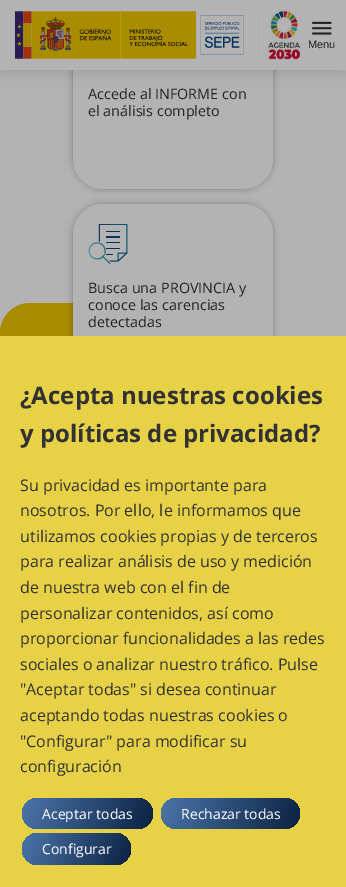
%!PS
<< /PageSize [346 887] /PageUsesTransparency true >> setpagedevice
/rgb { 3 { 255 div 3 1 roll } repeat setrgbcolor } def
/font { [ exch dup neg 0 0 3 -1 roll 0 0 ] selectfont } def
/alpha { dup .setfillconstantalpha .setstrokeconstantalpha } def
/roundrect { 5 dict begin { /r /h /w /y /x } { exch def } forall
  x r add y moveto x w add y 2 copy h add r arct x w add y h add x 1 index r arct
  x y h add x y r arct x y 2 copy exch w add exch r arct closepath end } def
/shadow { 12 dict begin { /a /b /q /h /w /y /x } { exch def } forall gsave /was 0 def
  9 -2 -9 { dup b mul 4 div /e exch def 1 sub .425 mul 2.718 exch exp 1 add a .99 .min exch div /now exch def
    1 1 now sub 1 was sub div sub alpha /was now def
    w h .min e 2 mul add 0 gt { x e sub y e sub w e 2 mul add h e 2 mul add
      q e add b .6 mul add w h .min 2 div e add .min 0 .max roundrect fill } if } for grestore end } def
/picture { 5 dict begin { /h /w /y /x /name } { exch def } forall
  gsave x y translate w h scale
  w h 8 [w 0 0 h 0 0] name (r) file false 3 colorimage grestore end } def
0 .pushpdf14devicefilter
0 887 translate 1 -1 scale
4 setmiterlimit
179 179 179 rgb
0 0 346 887 rectfill
0 0 0 rgb
73 10 200 179 30 4 0.3 shadow
179 179 179 rgb
73 10 200 179 30 roundrect fill
0 0 0 rgb
0 0 346 68 0 10 0.2 shadow
179 179 179 rgb
0 0 346 70 rectfill
(img/1.rgb) 15 11 229 48 picture
(img/2.rgb) 258 10 44 50 picture
(img/3.rgb) 312 21 20 14 picture
169 140 0 rgb
30 303 moveto 123 303 lineto 139.5 303 153 316.5 153 333 curveto 153 408 lineto 153 424.5 139.5 438 123 438 curveto 0 438 lineto 0 333 lineto 0 316.5 13.5 303 30 303 curveto closepath fill
0 0 0 rgb
73 204 200 179 30 4 0.3 shadow
179 179 179 rgb
73 204 200 179 30 roundrect fill
(img/4.rgb) 88 224 40 40 picture
230 209 71 rgb
0 336 346 551 rectfill
gsave 22 798 131 31 15.5 roundrect clip newpath
<< /ShadingType 2 /ColorSpace /DeviceRGB /Coords [26 789 149 838] /Extend [true true] /Function << /FunctionType 2 /Domain [0 1] /C0 [0.298 0.459 0.667] /C1 [0.043 0.133 0.255] /N 1 >> >> shfill grestore
gsave 161 798 139 31 15.5 roundrect clip newpath
<< /ShadingType 2 /ColorSpace /DeviceRGB /Coords [165 787 296 840] /Extend [true true] /Function << /FunctionType 2 /Domain [0 1] /C0 [0.298 0.459 0.667] /C1 [0.043 0.133 0.255] /N 1 >> >> shfill grestore
gsave 22 833 109 32 16 roundrect clip newpath
<< /ShadingType 2 /ColorSpace /DeviceRGB /Coords [24 828 129 870] /Extend [true true] /Function << /FunctionType 2 /Domain [0 1] /C0 [0.298 0.459 0.667] /C1 [0.043 0.133 0.255] /N 1 >> >> shfill grestore
/LiberationSans-Regular 11 font
35 35 35 rgb
308 48 moveto (Menu) show
/OpenSans-Regular 14.4 font
[
  [(Accede al INFORME con) 88 99]
  [(el análisis completo) 88 116]
  [(Busca una PROVINCIA y) 88 293]
  [(conoce las carencias) 88 310]
  [(detectadas) 88 327]
] { aload pop moveto show } forall
/OpenSans-Bold 24 font
50 50 50 rgb
20 404 moveto (¿Acepta nuestras cookies) show
20 442 moveto (y políticas de privacidad?) show
/OpenSans-Regular 16 font
[
  [(Su privacidad es importante para) 20 491]
  [(nosotros. Por ello, le informamos que) 20 516]
  [(utilizamos cookies propias y de terceros) 20 542]
  [(para realizar análisis de uso y medición) 20 567]
  [(de nuestra web con el fin de) 20 593]
  [(personalizar contenidos, así como) 20 619]
  [(proporcionar funcionalidades a las redes) 20 644]
  [(sociales o analizar nuestro tráfico. Pulse) 20 670]
  [("Aceptar todas" si desea continuar) 20 695]
  [(aceptando todas nuestras cookies o) 20 721]
  [("Configurar" para modificar su) 20 747]
  [(configuración) 20 772]
] { aload pop moveto show } forall
/OpenSans-Regular 14 font
255 255 255 rgb
[
  [(Aceptar todas) 42 819]
  [(Rechazar todas) 181 819]
  [(Configurar) 42 854]
] { aload pop moveto show } forall
.poppdf14devicefilter showpage
